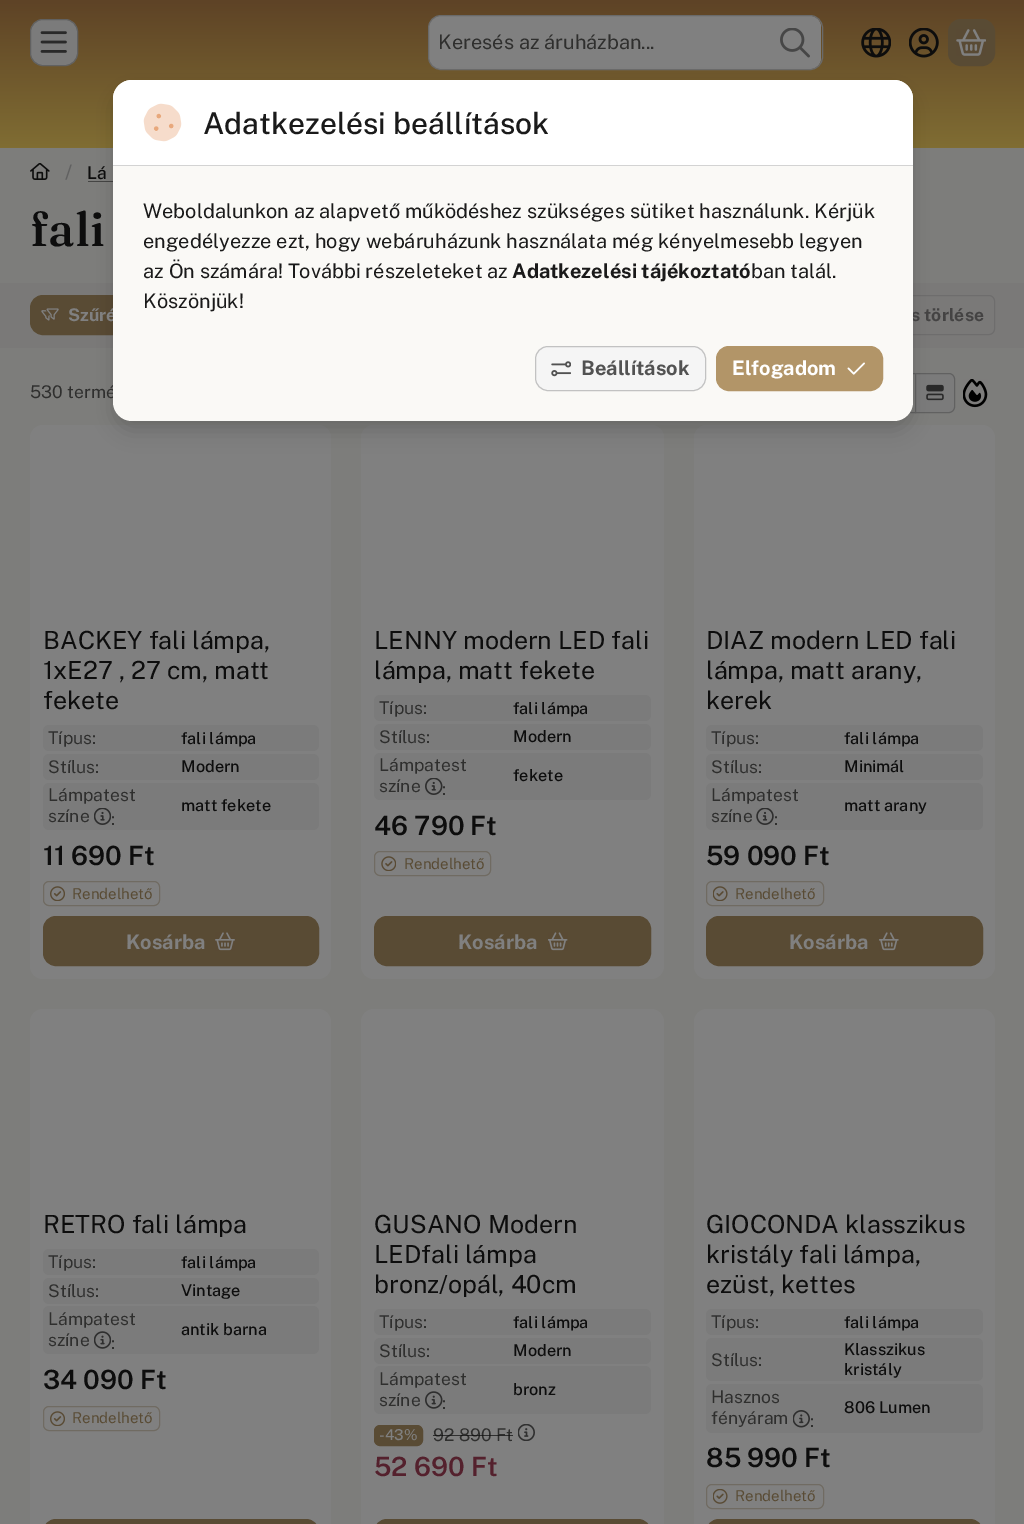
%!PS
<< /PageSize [1024 1524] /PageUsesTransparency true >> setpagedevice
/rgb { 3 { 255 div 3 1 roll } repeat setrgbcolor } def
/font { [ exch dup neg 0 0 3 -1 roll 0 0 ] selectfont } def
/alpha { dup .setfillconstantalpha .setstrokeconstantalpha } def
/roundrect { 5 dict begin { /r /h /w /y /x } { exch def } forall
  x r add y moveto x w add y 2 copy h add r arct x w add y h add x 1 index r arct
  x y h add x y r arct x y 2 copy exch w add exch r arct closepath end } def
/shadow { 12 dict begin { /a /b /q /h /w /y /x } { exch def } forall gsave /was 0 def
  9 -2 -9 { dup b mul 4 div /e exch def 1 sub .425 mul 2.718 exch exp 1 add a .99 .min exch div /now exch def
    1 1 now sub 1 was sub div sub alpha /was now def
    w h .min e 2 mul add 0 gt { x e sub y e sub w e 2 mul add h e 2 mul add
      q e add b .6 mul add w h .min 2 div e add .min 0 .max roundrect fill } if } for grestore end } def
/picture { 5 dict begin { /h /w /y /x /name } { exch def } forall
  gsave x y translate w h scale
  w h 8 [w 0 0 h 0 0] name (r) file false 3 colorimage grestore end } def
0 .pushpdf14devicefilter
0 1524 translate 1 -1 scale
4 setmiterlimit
125 125 123 rgb
0 0 1024 1524 rectfill
gsave 0 0 moveto 1024 0 lineto 1024 148 lineto 0 148 lineto closepath clip newpath
<< /ShadingType 2 /ColorSpace /DeviceRGB /Coords [513 0 513 148] /Extend [true true] /Function << /FunctionType 2 /Domain [0 1] /C0 [0.369 0.263 0.149] /C1 [0.502 0.427 0.2] /N 1 >> >> shfill grestore
123 123 123 rgb
30.5 19.5 47 46 12.5 roundrect gsave fill grestore
97 97 97 rgb
stroke
(img/1.rgb) 40 31 27 22 picture
128 128 128 rgb
429 16 392 53 11 roundrect fill
106 106 106 rgb
428.5 15.5 394 54 12.5 roundrect stroke
(img/2.rgb) 780 28 30 30 picture
(img/3.rgb) 861 28 30 30 picture
(img/4.rgb) 909 28 30 30 picture
89 75 52 rgb
948.5 19.5 46 46 12.5 roundrect gsave fill grestore
stroke
(img/5.rgb) 956 29 30 27 picture
69 69 68 rgb
88 181 25 1 rectfill
122 121 120 rgb
0 283 1024 65 rectfill
89 75 52 rgb
30.5 295.5 105 39 12.5 roundrect gsave fill grestore
stroke
110 109 109 rgb
825.5 295.5 169 39 5.5 roundrect stroke
97 97 97 rgb
876.5 373.5 39 39 rectstroke
123 123 123 rgb
915.5 373.5 moveto 949 373.5 lineto 952 373.5 954.5 376 954.5 379 curveto 954.5 407 lineto 954.5 410 952 412.5 949 412.5 curveto 915.5 412.5 lineto closepath gsave fill grestore
97 97 97 rgb
stroke
(img/11.rgb) 926 384 18 17 picture
128 128 128 rgb
30 425 301 554 13 roundrect fill
361 425 303 554 13 roundrect fill
694 425 301 554 13 roundrect fill
0 0 0 rgb
113 90 800 341 19 10 0.15 shadow
(img/9.rgb) 30 163 20 17 picture
(img/10.rgb) 41 308 18 13 picture
(img/12.rgb) 963 379 25 29 picture
123 123 123 rgb
43 725 276 26 6 roundrect fill
43 754 276 26 6 roundrect fill
43 783 276 47 6 roundrect fill
(img/13.rgb) 94 808 17 17 picture
112 107 98 rgb
43.5 881.5 116 24 5.5 roundrect stroke
(img/14.rgb) 50 886 15 15 picture
89 75 52 rgb
43.5 916.5 275 49 12.5 roundrect gsave fill grestore
stroke
(img/15.rgb) 215 932 20 19 picture
123 123 123 rgb
374 695 277 26 6 roundrect fill
374 724 277 26 6 roundrect fill
374 753 277 47 6 roundrect fill
(img/16.rgb) 425 778 18 17 picture
112 107 98 rgb
374.5 851.5 116 24 5.5 roundrect stroke
(img/17.rgb) 381 856 15 15 picture
89 75 52 rgb
374.5 916.5 276 49 12.5 roundrect gsave fill grestore
stroke
(img/18.rgb) 548 932 20 19 picture
123 123 123 rgb
706 725 277 26 6 roundrect fill
706 754 277 26 6 roundrect fill
706 783 277 47 6 roundrect fill
(img/19.rgb) 756 808 18 17 picture
112 107 98 rgb
706.5 881.5 117 24 5.5 roundrect stroke
(img/20.rgb) 713 886 15 15 picture
89 75 52 rgb
706.5 916.5 276 49 12.5 roundrect gsave fill grestore
stroke
(img/21.rgb) 879 932 20 19 picture
128 128 128 rgb
30 1009 301 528 13 roundrect fill
123 123 123 rgb
43 1249 276 26 6 roundrect fill
43 1278 276 26 6 roundrect fill
43 1306 276 48 6 roundrect fill
(img/22.rgb) 94 1331 17 18 picture
112 107 98 rgb
43.5 1406.5 116 24 5.5 roundrect stroke
(img/14.rgb) 50 1411 15 15 picture
89 75 52 rgb
43.5 1519.5 275 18 12.5 roundrect gsave fill grestore
stroke
128 128 128 rgb
361 1009 303 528 13 roundrect fill
123 123 123 rgb
374 1309 277 26 6 roundrect fill
374 1338 277 26 6 roundrect fill
374 1366 277 48 6 roundrect fill
(img/23.rgb) 425 1391 18 18 picture
89 75 52 rgb
374.5 1425.5 48 20 5.5 roundrect gsave fill grestore
stroke
(img/24.rgb) 518 1424 17 17 picture
374.5 1519.5 276 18 12.5 roundrect gsave fill grestore
stroke
128 128 128 rgb
694 1009 301 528 13 roundrect fill
123 123 123 rgb
706 1309 277 26 6 roundrect fill
706 1338 277 43 6 roundrect fill
706 1384 277 49 6 roundrect fill
(img/25.rgb) 793 1410 17 18 picture
112 107 98 rgb
706.5 1484.5 117 24 5.5 roundrect stroke
(img/26.rgb) 713 1489 15 15 picture
89 75 52 rgb
706.5 1519.5 276 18 12.5 roundrect gsave fill grestore
stroke
/PublicSans-Regular 20 font
47 47 46 rgb
438 49 moveto (Keresés az áruházban...) show
/PublicSans-Medium 20 font
97 97 97 rgb
65 179 moveto (/) show
/PublicSans-Medium 17.5 font
13 13 13 rgb
87 179 moveto (Lá) show
/Fraunces-Medium 48 font
30 246 moveto (fali) show
/PublicSans-Bold 17.5 font
128 128 128 rgb
68 321 moveto (Szűré) show
68 67 67 rgb
911 321 moveto (s törlése) show
/PublicSans-Regular 17.5 font
47 47 46 rgb
30 398 moveto (530 termé) show
250 249 246 rgb
113 80 800 341 19 roundrect fill
178 149 104 rgb
716.5 346.5 166 44 12.5 roundrect gsave fill grestore
stroke
(img/8.rgb) 847 362 18 13 picture
245 245 245 rgb
535.5 346.5 170 44 12.5 roundrect gsave fill grestore
194 194 194 rgb
stroke
(img/7.rgb) 551 361 20 16 picture
/PublicSans-Bold 20 font
255 255 255 rgb
732 375 moveto (Elfogadom) show
82 82 82 rgb
581 375 moveto (Beállítások) show
/PublicSans-Regular 20 font
26 26 26 rgb
143 308 moveto (Köszönjük!) show
751 278 moveto (ban talál.) show
/PublicSans-Bold 20 font
512 278 moveto (Adatkezelési tájékoztató) show
/PublicSans-Regular 20 font
[
  [(az Ön számára! További részeleteket az) 143 278]
  [(engedélyezze ezt, hogy webáruházunk használata még kényelmesebb legyen) 143 248]
  [(Weboldalunkon az alapvető működéshez szükséges sütiket használunk. Kérjük) 143 218]
] { aload pop moveto show } forall
255 255 255 rgb
132 80 moveto 894 80 lineto 904.5 80 913 88.5 913 99 curveto 913 166 lineto 113 166 lineto 113 99 lineto 113 88.5 121.5 80 132 80 curveto closepath fill
(img/6.rgb) 143 103 39 39 picture
/PublicSans-Medium 30 font
26 26 26 rgb
203 134 moveto (Adatkezelési beállítások) show
211 211 211 rgb
113 165 800 1 rectfill
/PublicSans-Regular 25 font
13 13 13 rgb
[
  [(BACKEY fali lámpa,) 43 649]
  [(1xE27 , 27 cm, matt) 43 679]
  [(fekete) 43 709]
] { aload pop moveto show } forall
/PublicSans-Regular 17.5 font
47 47 46 rgb
48 744 moveto (Típus:) show
/PublicSans-Medium 16.25 font
13 13 13 rgb
181 744 moveto (fali lámpa) show
/PublicSans-Regular 17.5 font
47 47 46 rgb
48 773 moveto (Stílus:) show
/PublicSans-Medium 16.25 font
13 13 13 rgb
181 772 moveto (Modern) show
/PublicSans-Regular 17.5 font
47 47 46 rgb
[
  [(Lámpatest) 48 801]
  [(színe) 48 822]
  [(:) 111 825]
] { aload pop moveto show } forall
/PublicSans-Medium 16.25 font
13 13 13 rgb
181 811 moveto (matt fekete) show
/PublicSans-SemiBold 26.5 font
43 865 moveto (11 690 Ft) show
/PublicSans-Regular 15 font
89 75 52 rgb
72 899 moveto (Rendelhető) show
/PublicSans-Bold 20 font
128 128 128 rgb
126 949 moveto (Kosárba) show
/PublicSans-Regular 25 font
13 13 13 rgb
374 649 moveto (LENNY modern LED fali) show
374 679 moveto (lámpa, matt fekete) show
/PublicSans-Regular 17.5 font
47 47 46 rgb
379 714 moveto (Típus:) show
/PublicSans-Medium 16.25 font
13 13 13 rgb
513 714 moveto (fali lámpa) show
/PublicSans-Regular 17.5 font
47 47 46 rgb
379 743 moveto (Stílus:) show
/PublicSans-Medium 16.25 font
13 13 13 rgb
513 742 moveto (Modern) show
/PublicSans-Regular 17.5 font
47 47 46 rgb
[
  [(Lámpatest) 379 771]
  [(színe) 379 792]
  [(:) 442 795]
] { aload pop moveto show } forall
/PublicSans-Medium 16.25 font
13 13 13 rgb
513 781 moveto (fekete) show
/PublicSans-SemiBold 26.5 font
374 835 moveto (46 790 Ft) show
/PublicSans-Regular 15 font
89 75 52 rgb
404 869 moveto (Rendelhető) show
/PublicSans-Bold 20 font
128 128 128 rgb
458 949 moveto (Kosárba) show
/PublicSans-Regular 25 font
13 13 13 rgb
[
  [(DIAZ modern LED fali) 706 649]
  [(lámpa, matt arany,) 706 679]
  [(kerek) 706 709]
] { aload pop moveto show } forall
/PublicSans-Regular 17.5 font
47 47 46 rgb
711 744 moveto (Típus:) show
/PublicSans-Medium 16.25 font
13 13 13 rgb
844 744 moveto (fali lámpa) show
/PublicSans-Regular 17.5 font
47 47 46 rgb
711 773 moveto (Stílus:) show
/PublicSans-Medium 16.25 font
13 13 13 rgb
844 772 moveto (Minimál) show
/PublicSans-Regular 17.5 font
47 47 46 rgb
[
  [(Lámpatest) 711 801]
  [(színe) 711 822]
  [(:) 774 825]
] { aload pop moveto show } forall
/PublicSans-Medium 16.25 font
13 13 13 rgb
844 811 moveto (matt arany) show
/PublicSans-SemiBold 26.5 font
706 865 moveto (59 090 Ft) show
/PublicSans-Regular 15 font
89 75 52 rgb
735 899 moveto (Rendelhető) show
/PublicSans-Bold 20 font
128 128 128 rgb
789 949 moveto (Kosárba) show
/PublicSans-Regular 25 font
13 13 13 rgb
43 1233 moveto (RETRO fali lámpa) show
/PublicSans-Regular 17.5 font
47 47 46 rgb
48 1268 moveto (Típus:) show
/PublicSans-Medium 16.25 font
13 13 13 rgb
181 1268 moveto (fali lámpa) show
/PublicSans-Regular 17.5 font
47 47 46 rgb
48 1297 moveto (Stílus:) show
/PublicSans-Medium 16.25 font
13 13 13 rgb
181 1296 moveto (Vintage) show
/PublicSans-Regular 17.5 font
47 47 46 rgb
[
  [(Lámpatest) 48 1325]
  [(színe) 48 1346]
  [(:) 111 1349]
] { aload pop moveto show } forall
/PublicSans-Medium 16.25 font
13 13 13 rgb
181 1335 moveto (antik barna) show
/PublicSans-SemiBold 26.5 font
43 1389 moveto (34 090 Ft) show
/PublicSans-Regular 15 font
89 75 52 rgb
72 1423 moveto (Rendelhető) show
/PublicSans-Regular 25 font
13 13 13 rgb
[
  [(GUSANO Modern) 374 1233]
  [(LEDfali lámpa) 374 1263]
  [(bronz/opál, 40cm) 374 1293]
] { aload pop moveto show } forall
/PublicSans-Regular 17.5 font
47 47 46 rgb
379 1328 moveto (Típus:) show
/PublicSans-Medium 16.25 font
13 13 13 rgb
513 1328 moveto (fali lámpa) show
/PublicSans-Regular 17.5 font
47 47 46 rgb
379 1357 moveto (Stílus:) show
/PublicSans-Medium 16.25 font
13 13 13 rgb
513 1356 moveto (Modern) show
/PublicSans-Regular 17.5 font
47 47 46 rgb
[
  [(Lámpatest) 379 1385]
  [(színe) 379 1406]
  [(:) 442 1409]
] { aload pop moveto show } forall
/PublicSans-Medium 16.25 font
13 13 13 rgb
513 1395 moveto (bronz) show
/PublicSans-Medium 15 font
128 128 128 rgb
379 1440 moveto (-43%) show
/PublicSans-Regular 17.5 font
47 47 46 rgb
433 1441 moveto (92 890 Ft) show
0.7 alpha
13 13 13 rgb
433 1435 58 1 rectfill
491 1435 22 1 rectfill
/PublicSans-SemiBold 26.5 font
1 alpha
84 33 45 rgb
374 1476 moveto (52 690 Ft) show
/PublicSans-Regular 25 font
13 13 13 rgb
[
  [(GIOCONDA klasszikus) 706 1233]
  [(kristály fali lámpa,) 706 1263]
  [(ezüst, kettes) 706 1293]
] { aload pop moveto show } forall
/PublicSans-Regular 17.5 font
47 47 46 rgb
711 1328 moveto (Típus:) show
/PublicSans-Medium 16.25 font
13 13 13 rgb
844 1328 moveto (fali lámpa) show
/PublicSans-Regular 17.5 font
47 47 46 rgb
711 1366 moveto (Stílus:) show
/PublicSans-Medium 16.25 font
13 13 13 rgb
844 1355 moveto (Klasszikus) show
844 1375 moveto (kristály) show
/PublicSans-Regular 17.5 font
47 47 46 rgb
[
  [(Hasznos) 711 1403]
  [(fényáram) 711 1424]
  [(:) 810 1427]
] { aload pop moveto show } forall
/PublicSans-Medium 16.25 font
13 13 13 rgb
844 1413 moveto (806 Lumen) show
/PublicSans-SemiBold 26.5 font
706 1467 moveto (85 990 Ft) show
/PublicSans-Regular 15 font
89 75 52 rgb
735 1501 moveto (Rendelhető) show
.poppdf14devicefilter showpage
